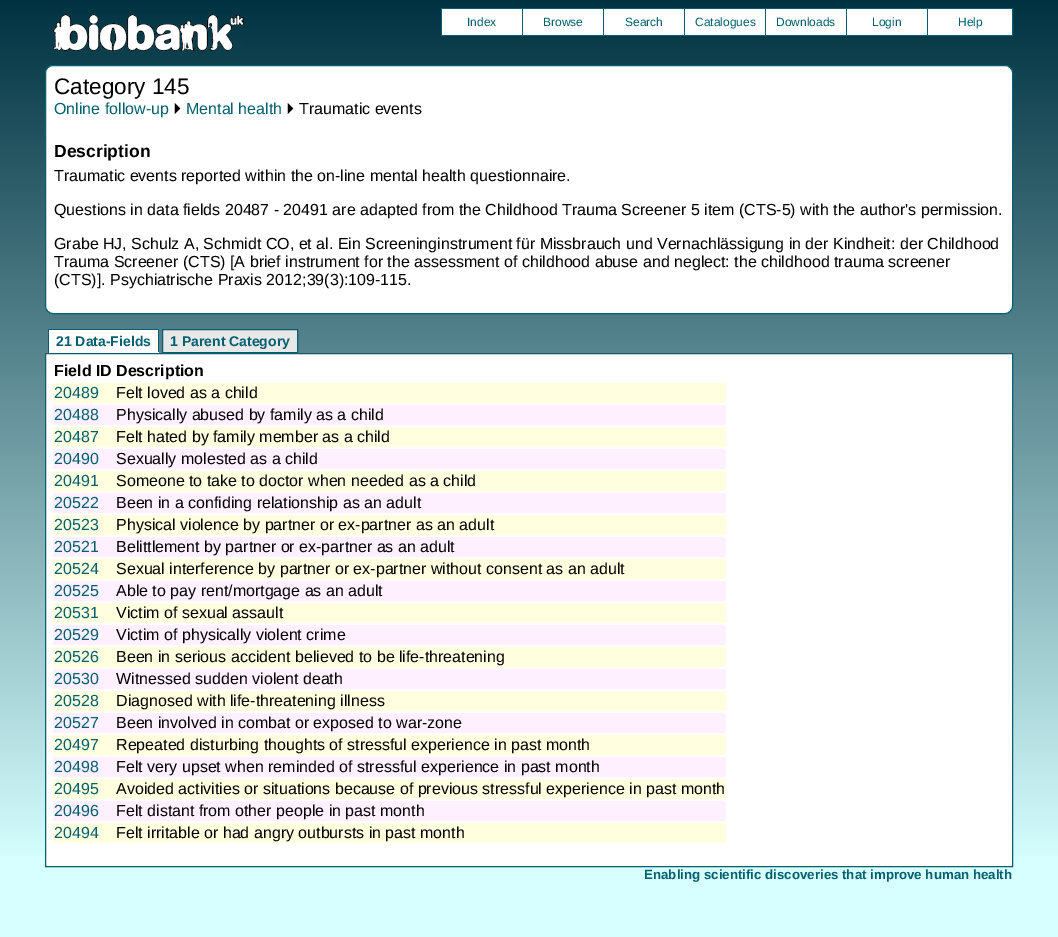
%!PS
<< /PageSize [1058 937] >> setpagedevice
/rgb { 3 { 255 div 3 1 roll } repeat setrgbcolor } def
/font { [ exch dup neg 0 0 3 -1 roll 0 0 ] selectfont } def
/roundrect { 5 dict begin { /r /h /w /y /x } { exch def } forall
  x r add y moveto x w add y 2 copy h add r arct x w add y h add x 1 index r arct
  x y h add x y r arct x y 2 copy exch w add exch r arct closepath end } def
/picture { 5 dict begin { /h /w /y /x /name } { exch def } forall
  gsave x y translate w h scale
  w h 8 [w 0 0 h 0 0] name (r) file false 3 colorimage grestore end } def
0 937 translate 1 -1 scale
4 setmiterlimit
215 255 255 rgb
0 0 1058 937 rectfill
gsave 0 0 moveto 1058 0 lineto 1058 857 lineto 0 857 lineto closepath clip newpath
<< /ShadingType 2 /ColorSpace /DeviceRGB /Coords [0 0 0 867] /Extend [true true] /Function << /FunctionType 2 /Domain [0 1] /C0 [0 0.196 0.255] /C1 [0.843 1 1] /N 1 >> >> shfill grestore
(img/1.rgb) 53 14 191 37 picture
[
  [441 8 486 1 0 95 111]
  [441 35 486 1 0 95 111]
  [441 8 1 28 0 95 111]
  [442 9 80 26 255 255 255]
  [522 8 1 28 0 95 111]
  [523 9 80 26 255 255 255]
  [603 8 1 28 0 95 111]
  [604 9 80 26 255 255 255]
  [684 8 1 28 0 95 111]
  [685 9 80 26 255 255 255]
  [765 8 1 28 0 95 111]
  [766 9 80 26 255 255 255]
  [846 8 1 28 0 95 111]
  [847 9 80 26 255 255 255]
] { aload pop rgb rectfill } forall
0 95 111 rgb
927.5 8.5 85 27 rectstroke
255 255 255 rgb
928 9 84 26 rectfill
45.5 65.5 967 248 7.5 roundrect gsave fill grestore
0 95 111 rgb
stroke
[
  [45 352 968 1 119 119 136]
  [49 330 109 22 255 255 255]
  [48 329 111 1 0 95 111]
  [158 329 1 24 0 95 111]
  [48 352 111 1 255 255 255]
  [48 329 1 24 0 95 111]
] { aload pop rgb rectfill } forall
232 232 232 rgb
162.5 329.5 moveto 297.5 329.5 lineto 297.5 352.5 lineto 162.5 352.5 lineto closepath gsave fill grestore
0 95 111 rgb
stroke
255 255 255 rgb
45.5 353.5 moveto 1012.5 353.5 lineto 1012.5 866.5 lineto 45.5 866.5 lineto closepath gsave fill grestore
0 95 111 rgb
stroke
[
  [53 383 673 20 255 255 224]
  [53 405 673 20 255 240 255]
  [53 427 673 20 255 255 224]
  [53 449 673 20 255 240 255]
  [53 471 673 20 255 255 224]
  [53 493 673 20 255 240 255]
  [53 515 673 20 255 255 224]
  [53 537 673 20 255 240 255]
  [53 559 673 20 255 255 224]
  [53 581 673 20 255 240 255]
  [53 603 673 20 255 255 224]
  [53 625 673 20 255 240 255]
  [53 647 673 20 255 255 224]
  [53 669 673 20 255 240 255]
  [53 691 673 20 255 255 224]
  [53 713 673 20 255 240 255]
  [53 735 673 20 255 255 224]
  [53 757 673 20 255 240 255]
  [53 779 673 20 255 255 224]
  [53 801 673 20 255 240 255]
  [53 823 673 20 255 255 224]
] { aload pop rgb rectfill } forall
/LiberationSans-Regular 12 font
0 95 111 rgb
[
  [(Index) 467 26]
  [(Browse) 543 26]
  [(Search) 625 26]
  [(Catalogues) 695 26]
  [(Downloads) 776 26]
  [(Login) 872 26]
  [(Help) 958 26]
] { aload pop moveto show } forall
/LiberationSans-Regular 22.5 font
0 0 0 rgb
54 94 moveto (Category 145) show
/LiberationSans-Regular 16 font
0 95 111 rgb
54 114 moveto (Online follow-up) show
/FreeSans-Regular 16 font
0 0 0 rgb
173 114 moveto (⏵) show
/LiberationSans-Regular 16 font
0 95 111 rgb
186 114 moveto (Mental health) show
/FreeSans-Regular 16 font
0 0 0 rgb
286 114 moveto (⏵) show
/LiberationSans-Regular 16 font
299 114 moveto (Traumatic events) show
/LiberationSans-Bold 17.5 font
54 157 moveto (Description) show
/LiberationSans-Regular 16 font
[
  [(Traumatic events reported within the on-line mental health questionnaire.) 54 181]
  [(Questions in data fields 20487 - 20491 are adapted from the Childhood Trauma Screener 5 item \(CTS-5\) with the author's permission.) 54 215]
  [(Grabe HJ, Schulz A, Schmidt CO, et al. Ein Screeninginstrument für Missbrauch und Vernachlässigung in der Kindheit: der Childhood) 54 249]
  [(Trauma Screener \(CTS\) [A brief instrument for the assessment of childhood abuse and neglect: the childhood trauma screener) 54 267]
  [(\(CTS\)]. Psychiatrische Praxis 2012;39\(3\):109-115.) 54 285]
] { aload pop moveto show } forall
/LiberationSans-Bold 14 font
0 95 111 rgb
56 346 moveto (21 Data-Fields) show
170 346 moveto (1 Parent Category) show
/LiberationSans-Bold 16 font
0 0 0 rgb
54 376 moveto (Field ID) show
116 376 moveto (Description) show
/LiberationSans-Regular 16 font
0 95 111 rgb
54 398 moveto (20489) show
0 0 0 rgb
116 398 moveto (Felt loved as a child) show
0 95 111 rgb
54 420 moveto (20488) show
0 0 0 rgb
116 420 moveto (Physically abused by family as a child) show
0 95 111 rgb
54 442 moveto (20487) show
0 0 0 rgb
116 442 moveto (Felt hated by family member as a child) show
0 95 111 rgb
54 464 moveto (20490) show
0 0 0 rgb
116 464 moveto (Sexually molested as a child) show
0 95 111 rgb
54 486 moveto (20491) show
0 0 0 rgb
116 486 moveto (Someone to take to doctor when needed as a child) show
0 95 111 rgb
54 508 moveto (20522) show
0 0 0 rgb
116 508 moveto (Been in a confiding relationship as an adult) show
0 95 111 rgb
54 530 moveto (20523) show
0 0 0 rgb
116 530 moveto (Physical violence by partner or ex-partner as an adult) show
0 95 111 rgb
54 552 moveto (20521) show
0 0 0 rgb
116 552 moveto (Belittlement by partner or ex-partner as an adult) show
0 95 111 rgb
54 574 moveto (20524) show
0 0 0 rgb
116 574 moveto (Sexual interference by partner or ex-partner without consent as an adult) show
0 95 111 rgb
54 596 moveto (20525) show
0 0 0 rgb
116 596 moveto (Able to pay rent/mortgage as an adult) show
0 95 111 rgb
54 618 moveto (20531) show
0 0 0 rgb
116 618 moveto (Victim of sexual assault) show
0 95 111 rgb
54 640 moveto (20529) show
0 0 0 rgb
116 640 moveto (Victim of physically violent crime) show
0 95 111 rgb
54 662 moveto (20526) show
0 0 0 rgb
116 662 moveto (Been in serious accident believed to be life-threatening) show
0 95 111 rgb
54 684 moveto (20530) show
0 0 0 rgb
116 684 moveto (Witnessed sudden violent death) show
0 95 111 rgb
54 706 moveto (20528) show
0 0 0 rgb
116 706 moveto (Diagnosed with life-threatening illness) show
0 95 111 rgb
54 728 moveto (20527) show
0 0 0 rgb
116 728 moveto (Been involved in combat or exposed to war-zone) show
0 95 111 rgb
54 750 moveto (20497) show
0 0 0 rgb
116 750 moveto (Repeated disturbing thoughts of stressful experience in past month) show
0 95 111 rgb
54 772 moveto (20498) show
0 0 0 rgb
116 772 moveto (Felt very upset when reminded of stressful experience in past month) show
0 95 111 rgb
54 794 moveto (20495) show
0 0 0 rgb
116 794 moveto (Avoided activities or situations because of previous stressful experience in past month) show
0 95 111 rgb
54 816 moveto (20496) show
0 0 0 rgb
116 816 moveto (Felt distant from other people in past month) show
0 95 111 rgb
54 838 moveto (20494) show
0 0 0 rgb
116 838 moveto (Felt irritable or had angry outbursts in past month) show
/LiberationSans-Bold 13.3 font
0 95 111 rgb
644 879 moveto (Enabling scientific discoveries that improve human health) show
showpage
